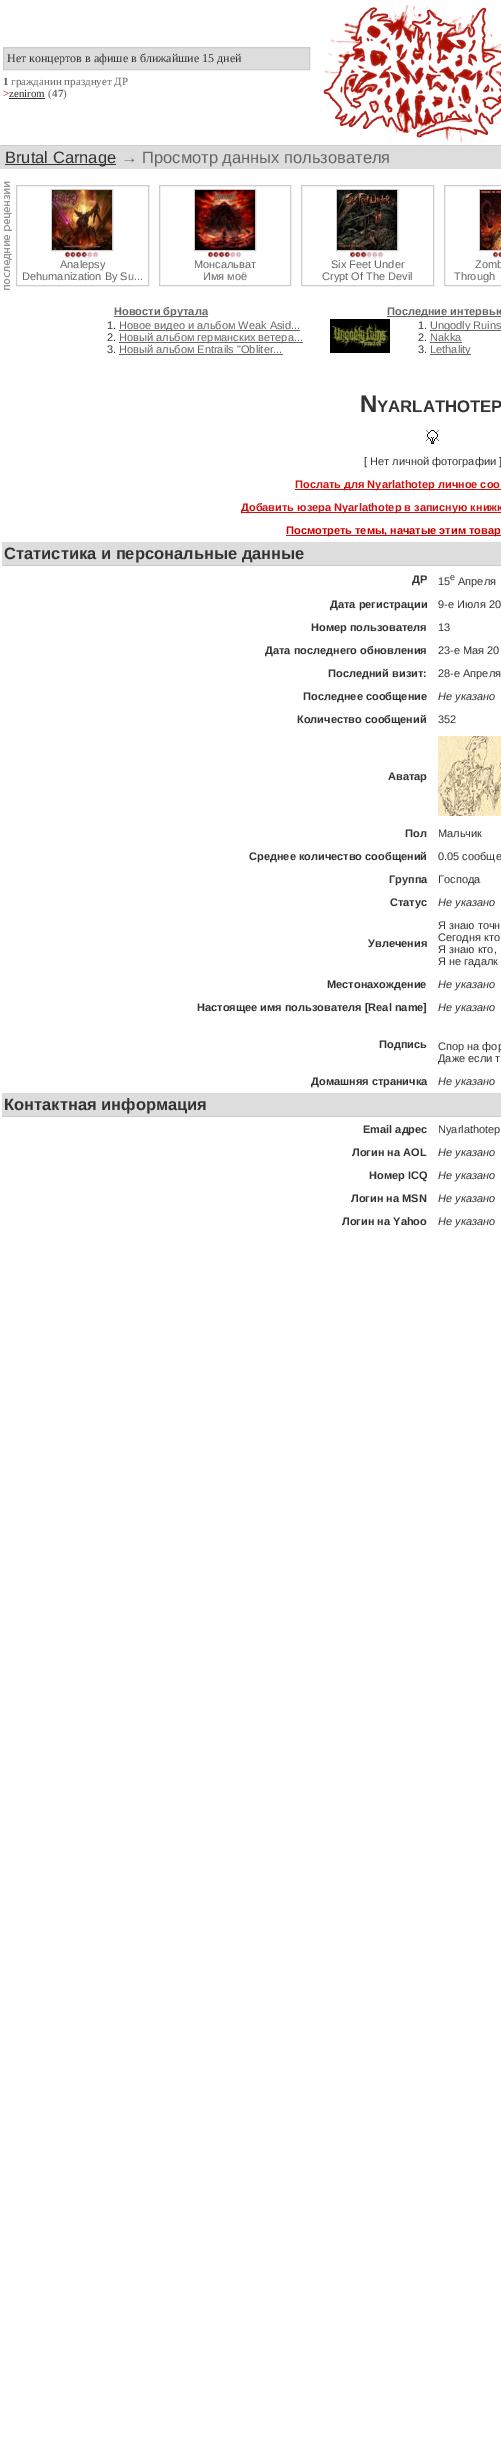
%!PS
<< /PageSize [501 2460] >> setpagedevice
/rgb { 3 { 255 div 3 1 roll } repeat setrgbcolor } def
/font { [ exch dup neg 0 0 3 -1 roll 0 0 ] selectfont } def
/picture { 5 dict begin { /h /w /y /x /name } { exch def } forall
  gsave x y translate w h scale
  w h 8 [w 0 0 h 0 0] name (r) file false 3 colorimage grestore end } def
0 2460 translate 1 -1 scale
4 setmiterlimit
255 255 255 rgb
0 0 501 2460 rectfill
221 221 221 rgb
3.5 47.5 moveto 309.5 47.5 lineto 309.5 69.5 lineto 3.5 69.5 lineto closepath gsave fill grestore
204 204 204 rgb
stroke
51 51 51 rgb
9 98 36 1 rectfill
(img/1.rgb) 323 5 178 137 picture
[
  [0 146 501 23 221 221 221]
  [0 145 501 1 204 204 204]
  [5 164 111 1 51 51 51]
] { aload pop rgb rectfill } forall
(img/2.rgb) 4 181 8 109 picture
204 204 204 rgb
16.5 185.5 132 100 rectstroke
51.5 189.5 61 61 rectstroke
(img/3.rgb) 52 190 60 60 picture
(img/4.rgb) 65 251 34 7 picture
159.5 185.5 131 100 rectstroke
194.5 189.5 61 61 rectstroke
(img/5.rgb) 195 190 60 60 picture
(img/4.rgb) 208 251 34 7 picture
301.5 185.5 132 100 rectstroke
336.5 189.5 61 61 rectstroke
(img/6.rgb) 337 190 60 60 picture
(img/7.rgb) 350 251 34 7 picture
444.5 185.5 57 100 rectstroke
479.5 189.5 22 61 rectstroke
(img/8.rgb) 480 190 21 60 picture
(img/9.rgb) 493 251 8 7 picture
[
  [114 316 94 1 102 102 102]
  [387 316 114 1 102 102 102]
  [119 330 181 1 102 102 102]
  [119 342 184 1 102 102 102]
  [119 354 164 1 102 102 102]
] { aload pop rgb rectfill } forall
(img/10.rgb) 330 319 60 34 picture
[
  [430 330 71 1 102 102 102]
  [430 342 32 1 102 102 102]
  [430 354 41 1 102 102 102]
] { aload pop rgb rectfill } forall
(img/11.rgb) 426 430 13 14 picture
[
  [295 489 206 1 204 17 17]
  [241 512 260 1 204 17 17]
  [286 535 215 1 204 17 17]
  [2 542 499 23 221 221 221]
  [2 565 499 1 204 204 204]
] { aload pop rgb rectfill } forall
(img/12.rgb) 438 736 63 80 picture
221 221 221 rgb
2 1093 499 23 rectfill
204 204 204 rgb
2 1116 499 1 rectfill
/LiberationSerif-Regular 12 font
51 51 51 rgb
7 62 moveto (Нет концертов в афише в ближайшие 15 дней) show
/LiberationSerif-Bold 11 font
102 102 102 rgb
3 85 moveto (1) show
/LiberationSerif-Regular 11 font
11 85 moveto (гражданин празднует ДР) show
173 1 1 rgb
3 97 moveto (>) show
51 51 51 rgb
9 97 moveto (zenirom) show
102 102 102 rgb
48 97 moveto (\() show
/LiberationSerif-Bold 11 font
52 97 moveto (47) show
/LiberationSerif-Regular 11 font
63 97 moveto (\)) show
/LiberationSans-Regular 16.5 font
51 51 51 rgb
5 163 moveto (Brutal Carnage) show
102 102 102 rgb
121 163 moveto (→ Просмотр данных пользователя) show
/LiberationSans-Regular 11 font
[
  [(Analepsy) 60 268]
  [(Dehumanization By Su...) 22 280]
  [(Монсальват) 194 268]
  [(Имя моё) 203 280]
  [(Six Feet Under) 331 268]
  [(Crypt Of The Devil) 322 280]
  [(Zomb) 475 268]
  [(Through) 454 280]
] { aload pop moveto show } forall
/LiberationSans-Bold 11 font
114 315 moveto (Новости брутала) show
387 315 moveto (Последние интервью) show
/LiberationSans-Regular 11 font
51 51 51 rgb
107 329 moveto (1.) show
102 102 102 rgb
119 329 moveto (Новое видео и альбом Weak Asid...) show
51 51 51 rgb
107 341 moveto (2.) show
102 102 102 rgb
119 341 moveto (Новый альбом германских ветера...) show
51 51 51 rgb
107 353 moveto (3.) show
102 102 102 rgb
119 353 moveto (Новый альбом Entrails "Obliter...) show
51 51 51 rgb
418 329 moveto (1.) show
102 102 102 rgb
430 329 moveto (Ungodly Ruins) show
51 51 51 rgb
418 341 moveto (2.) show
102 102 102 rgb
430 341 moveto (Nakka) show
51 51 51 rgb
418 353 moveto (3.) show
102 102 102 rgb
430 353 moveto (Lethality) show
/LiberationSans-Bold 24 font
51 51 51 rgb
360 412 moveto (N) show
/LiberationSans-Bold 16.75 font
377 412 moveto (YARLATHOTEP) show
/LiberationSans-Regular 11 font
364 465 moveto ([ Нет личной фотографии ]) show
/LiberationSans-Bold 11 font
204 17 17 rgb
295 488 moveto (Послать для Nyarlathotep личное соо) show
241 511 moveto (Добавить юзера Nyarlathotep в записную книжк) show
204 0 0 rgb
286 534 moveto (Посмотреть темы, начатые этим товар) show
/LiberationSans-Bold 16.5 font
51 51 51 rgb
4 559 moveto (Статистика и персональные данные) show
/LiberationSans-Bold 11 font
412 583 moveto (ДР) show
/LiberationSans-Regular 11 font
438 585 moveto (15) show
/LiberationSans-Regular 9 font
450 580 moveto (е) show
/LiberationSans-Regular 11 font
458 585 moveto (Апреля) show
/LiberationSans-Bold 11 font
330 608 moveto (Дата регистрации) show
/LiberationSans-Regular 11 font
438 608 moveto (9-е Июля 20) show
/LiberationSans-Bold 11 font
311 631 moveto (Номер пользователя) show
/LiberationSans-Regular 11 font
438 631 moveto (13) show
/LiberationSans-Bold 11 font
265 654 moveto (Дата последнего обновления) show
/LiberationSans-Regular 11 font
438 654 moveto (23-е Мая 20) show
/LiberationSans-Bold 11 font
328 677 moveto (Последний визит:) show
/LiberationSans-Regular 11 font
438 677 moveto (28-е Апреля) show
/LiberationSans-Bold 11 font
303 700 moveto (Последнее сообщение) show
/LiberationSans-Italic 11 font
438 700 moveto (Не указано) show
/LiberationSans-Bold 11 font
297 723 moveto (Количество сообщений) show
/LiberationSans-Regular 11 font
438 723 moveto (352) show
/LiberationSans-Bold 11 font
388 780 moveto (Аватар) show
405 837 moveto (Пол) show
/LiberationSans-Regular 11 font
438 837 moveto (Мальчик) show
/LiberationSans-Bold 11 font
249 860 moveto (Среднее количество сообщений) show
/LiberationSans-Regular 11 font
438 860 moveto (0.05 сообще) show
/LiberationSans-Bold 11 font
389 883 moveto (Группа) show
/LiberationSans-Regular 11 font
438 883 moveto (Господа) show
/LiberationSans-Bold 11 font
390 906 moveto (Статус) show
/LiberationSans-Italic 11 font
438 906 moveto (Не указано) show
/LiberationSans-Bold 11 font
368 947 moveto (Увлечения) show
/LiberationSans-Regular 11 font
[
  [(Я знаю точн) 438 929]
  [(Сегодня кто) 438 941]
  [(Я знаю кто,) 438 953]
  [(Я не гадалк) 438 965]
] { aload pop moveto show } forall
/LiberationSans-Bold 11 font
327 988 moveto (Местонахождение) show
/LiberationSans-Italic 11 font
438 988 moveto (Не указано) show
/LiberationSans-Bold 11 font
197 1011 moveto (Настоящее имя пользователя [Real name]) show
/LiberationSans-Italic 11 font
438 1011 moveto (Не указано) show
/LiberationSans-Bold 11 font
379 1048 moveto (Подпись) show
/LiberationSans-Regular 11 font
438 1050 moveto (Спор на фор) show
438 1062 moveto (Даже если т) show
/LiberationSans-Bold 11 font
311 1085 moveto (Домашняя страничка) show
/LiberationSans-Italic 11 font
438 1085 moveto (Не указано) show
/LiberationSans-Bold 16.5 font
4 1110 moveto (Контактная информация) show
/LiberationSans-Bold 11 font
363 1133 moveto (Email адрес) show
/LiberationSans-Regular 11 font
438 1133 moveto (Nyarlathotep) show
/LiberationSans-Bold 11 font
352 1156 moveto (Логин на AOL) show
/LiberationSans-Italic 11 font
438 1156 moveto (Не указано) show
/LiberationSans-Bold 11 font
369 1179 moveto (Номер ICQ) show
/LiberationSans-Italic 11 font
438 1179 moveto (Не указано) show
/LiberationSans-Bold 11 font
351 1202 moveto (Логин на MSN) show
/LiberationSans-Italic 11 font
438 1202 moveto (Не указано) show
/LiberationSans-Bold 11 font
342 1225 moveto (Логин на Yahoo) show
/LiberationSans-Italic 11 font
438 1225 moveto (Не указано) show
showpage
